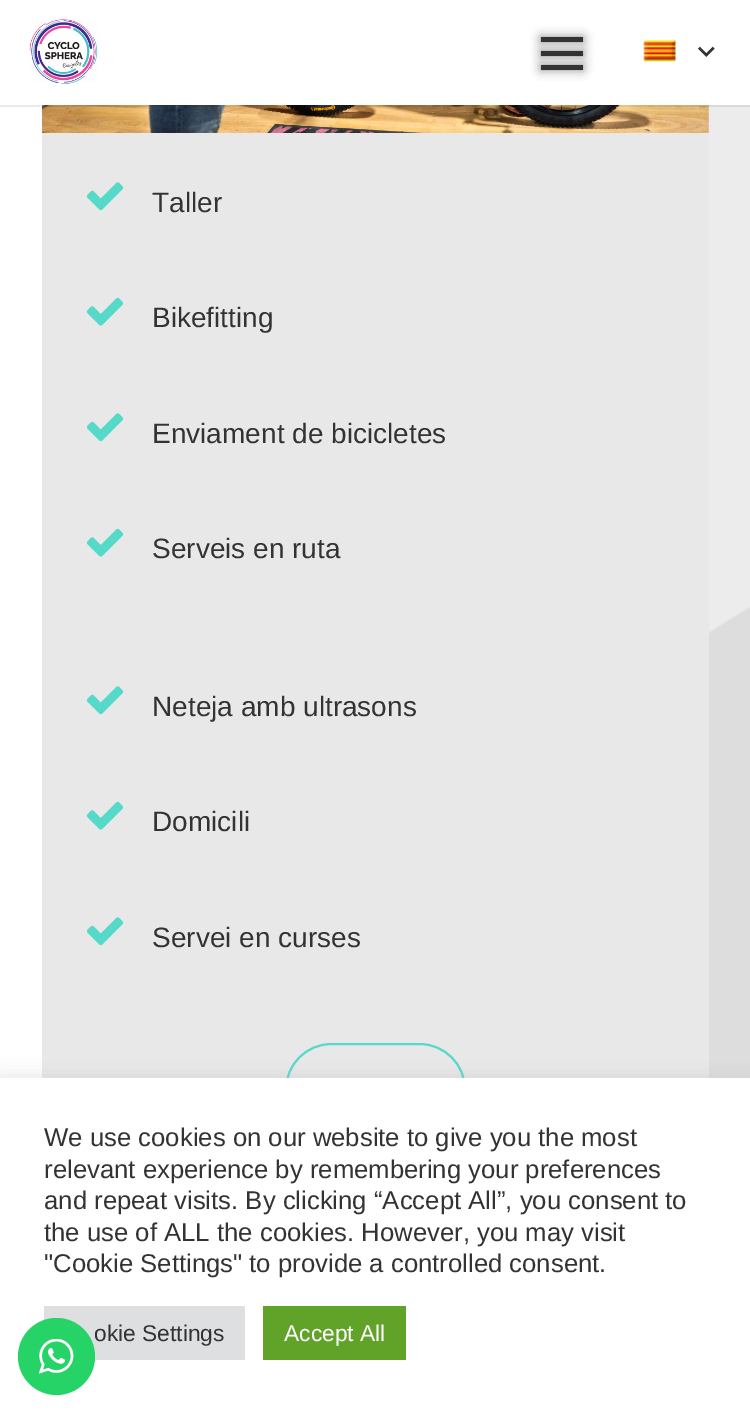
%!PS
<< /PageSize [750 1411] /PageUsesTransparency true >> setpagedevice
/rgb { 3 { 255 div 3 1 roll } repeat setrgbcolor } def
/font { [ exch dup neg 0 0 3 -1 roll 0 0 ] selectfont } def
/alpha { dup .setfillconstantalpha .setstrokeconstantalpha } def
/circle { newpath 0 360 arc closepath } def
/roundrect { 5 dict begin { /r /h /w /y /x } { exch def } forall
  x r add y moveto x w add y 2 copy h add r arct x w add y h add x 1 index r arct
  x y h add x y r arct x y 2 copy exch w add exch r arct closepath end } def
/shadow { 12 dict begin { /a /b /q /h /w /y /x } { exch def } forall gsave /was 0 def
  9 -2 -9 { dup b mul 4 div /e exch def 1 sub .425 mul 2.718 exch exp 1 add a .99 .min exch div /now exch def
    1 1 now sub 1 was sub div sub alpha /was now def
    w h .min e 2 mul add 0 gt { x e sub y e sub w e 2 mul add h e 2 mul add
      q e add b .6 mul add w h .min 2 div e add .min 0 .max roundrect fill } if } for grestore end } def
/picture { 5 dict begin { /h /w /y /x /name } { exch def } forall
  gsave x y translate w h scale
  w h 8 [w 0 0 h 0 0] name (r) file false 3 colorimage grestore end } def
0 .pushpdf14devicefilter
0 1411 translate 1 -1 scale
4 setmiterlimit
255 255 255 rgb
0 0 750 1411 rectfill
(img/4.rgb) 708 105 42 973 picture
(img/5.rgb) 42 105 667 28 picture
0.08 alpha
0 0 0 rgb
0 105 moveto 0 107 lineto 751 107 lineto 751 2 lineto 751 105 lineto closepath fill
1 alpha
(img/1.rgb) 29 19 69 65 picture
12 12 12 rgb
541 51 42 5 0 5 0.47 shadow
51 51 51 rgb
541 51 42 5 rectfill
12 12 12 rgb
541 37 42 5 0 5 0.47 shadow
51 51 51 rgb
541 37 42 5 rectfill
12 12 12 rgb
541 65 42 5 0 5 0.47 shadow
51 51 51 rgb
541 65 42 5 rectfill
(img/2.rgb) 643 40 33 22 picture
(img/3.rgb) 698 46 17 11 picture
232 232 232 rgb
42 133 667 945 rectfill
(img/6.rgb) 86 182 38 29 picture
(img/7.rgb) 86 297 38 29 picture
(img/6.rgb) 86 413 38 29 picture
(img/7.rgb) 86 528 38 29 picture
(img/6.rgb) 86 686 38 29 picture
(img/7.rgb) 86 801 38 29 picture
(img/6.rgb) 86 917 38 29 picture
85 217 201 rgb
2 setlinewidth
286 1044 179 91 45.5 roundrect stroke
172 171 171 rgb
0 1076 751 335 0 9 0.3 shadow
[
  [0 1078 750 333 255 255 255]
  [44 1306 201 54 222 223 224]
  [263 1306 143 54 97 162 41]
] { aload pop rgb rectfill } forall
/LiberationSans-Regular 28 font
51 51 51 rgb
[
  [(Taller) 152 212]
  [(Bikefitting) 152 327]
  [(Enviament de bicicletes) 152 443]
  [(Serveis en ruta) 152 558]
  [(Neteja amb ultrasons) 152 716]
  [(Domicili) 152 831]
  [(Servei en curses) 152 947]
] { aload pop moveto show } forall
/LiberationSans-Regular 25.7 font
[
  [(We use cookies on our website to give you the most) 44 1146]
  [(relevant experience by remembering your preferences) 44 1178]
  [(and repeat visits. By clicking “Accept All”, you consent to) 44 1209]
  [(the use of ALL the cookies. However, you may visit) 44 1241]
  [("Cookie Settings" to provide a controlled consent.) 44 1272]
] { aload pop moveto show } forall
/LiberationSans-Regular 22.75 font
94 1341 moveto (okie Settings) show
255 255 255 rgb
284 1341 moveto (Accept All) show
37 211 102 rgb
56.5 1356.5 38.5 circle fill
(img/8.rgb) 39 1339 35 35 picture
.poppdf14devicefilter showpage
